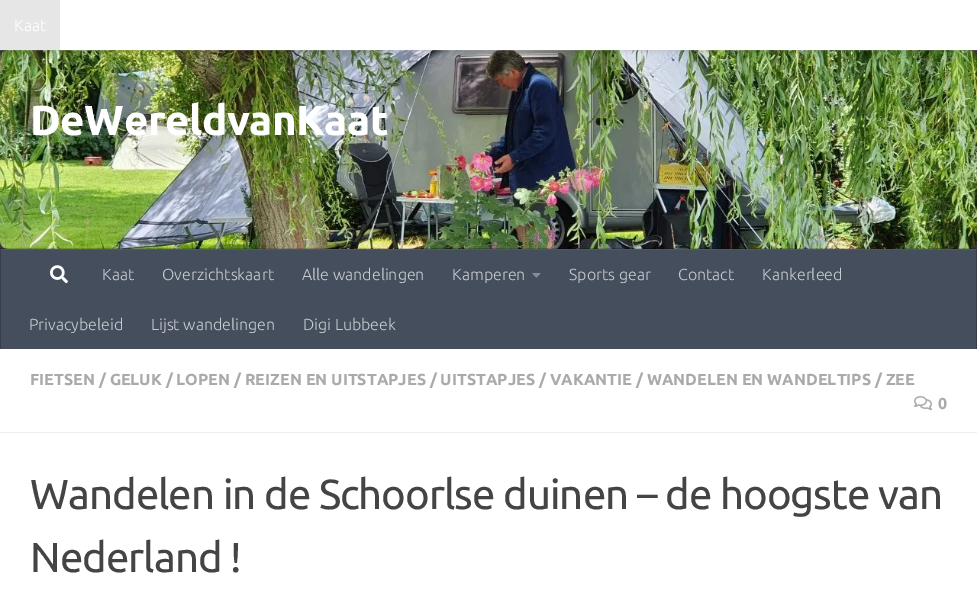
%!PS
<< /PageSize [977 589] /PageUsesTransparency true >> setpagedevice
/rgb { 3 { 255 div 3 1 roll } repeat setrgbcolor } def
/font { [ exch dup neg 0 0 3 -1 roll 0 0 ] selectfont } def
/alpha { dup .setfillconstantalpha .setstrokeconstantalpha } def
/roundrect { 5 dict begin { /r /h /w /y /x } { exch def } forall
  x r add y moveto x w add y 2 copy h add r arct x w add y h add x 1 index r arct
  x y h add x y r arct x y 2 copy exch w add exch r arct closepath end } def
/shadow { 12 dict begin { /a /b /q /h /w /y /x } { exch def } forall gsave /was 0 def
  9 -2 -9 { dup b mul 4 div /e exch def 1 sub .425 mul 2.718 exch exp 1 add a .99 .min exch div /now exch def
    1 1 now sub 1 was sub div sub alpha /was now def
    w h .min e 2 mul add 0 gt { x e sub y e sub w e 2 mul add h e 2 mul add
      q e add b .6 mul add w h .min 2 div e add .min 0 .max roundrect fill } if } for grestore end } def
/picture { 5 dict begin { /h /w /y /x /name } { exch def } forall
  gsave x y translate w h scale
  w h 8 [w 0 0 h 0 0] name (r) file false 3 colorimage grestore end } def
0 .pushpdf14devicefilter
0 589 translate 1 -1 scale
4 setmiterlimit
51 54 59 rgb
0 0 977 589 rectfill
(img/1.rgb) 0 50 977 199 picture
0.15 alpha
255 255 255 rgb
0 50 977 1 rectfill
1 alpha
0 0 0 rgb
0 0 977 50 0 2.5 0.2 shadow
[
  [60 0 917 50 255 255 255]
  [0 0 60 50 230 230 230]
] { aload pop rgb rectfill } forall
0.2 alpha
[
  [0 248 977 1 0 0 0]
] { aload pop rgb rectfill } forall
1 alpha
[
  [1 250 975 99 69 78 92]
  [0 249 977 1 78 87 100]
  [976 249 1 100 55 62 74]
  [976 249 1 1 65 72 83]
  [0 249 1 100 55 62 74]
  [0 249 1 1 65 72 83]
] { aload pop rgb rectfill } forall
(img/2.rgb) 50 265 18 19 picture
(img/3.rgb) 532 273 9 5 picture
255 255 255 rgb
0 349 977 240 rectfill
238 238 238 rgb
0 432 977 1 rectfill
(img/4.rgb) 914 396 18 14 picture
/Ubuntu-Light 16 font
255 255 255 rgb
14 31 moveto (Kaat) show
/Ubuntu-Bold 42 font
30 135 moveto -0.5 0 (DeWereldvanKaat) ashow
/Ubuntu-Light 16 font
199 202 206 rgb
[
  [(Kaat) 102 280]
  [(Overzichtskaart) 162 280]
  [(Alle wandelingen) 302 280]
  [(Kamperen) 452 280]
  [(Sports gear) 569 280]
  [(Contact) 678 280]
  [(Kankerleed) 762 280]
  [(Privacybeleid) 29 330]
  [(Lijst wandelingen) 151 330]
  [(Digi Lubbeek) 303 330]
] { aload pop moveto show } forall
/Ubuntu-Bold 16 font
170 170 170 rgb
30 385 moveto (FIETSEN / GELUK / LOPEN / REIZEN EN UITSTAPJES / UITSTAPJES / VAKANTIE / WANDELEN EN WANDELTIPS / ZEE) show
938 409 moveto (0) show
/Ubuntu-Regular 41.9 font
68 68 68 rgb
30 509 moveto -1 0 (Wandelen in de Schoorlse duinen – de hoogste van) ashow
30 572 moveto -1 0 (Nederland !) ashow
.poppdf14devicefilter showpage
